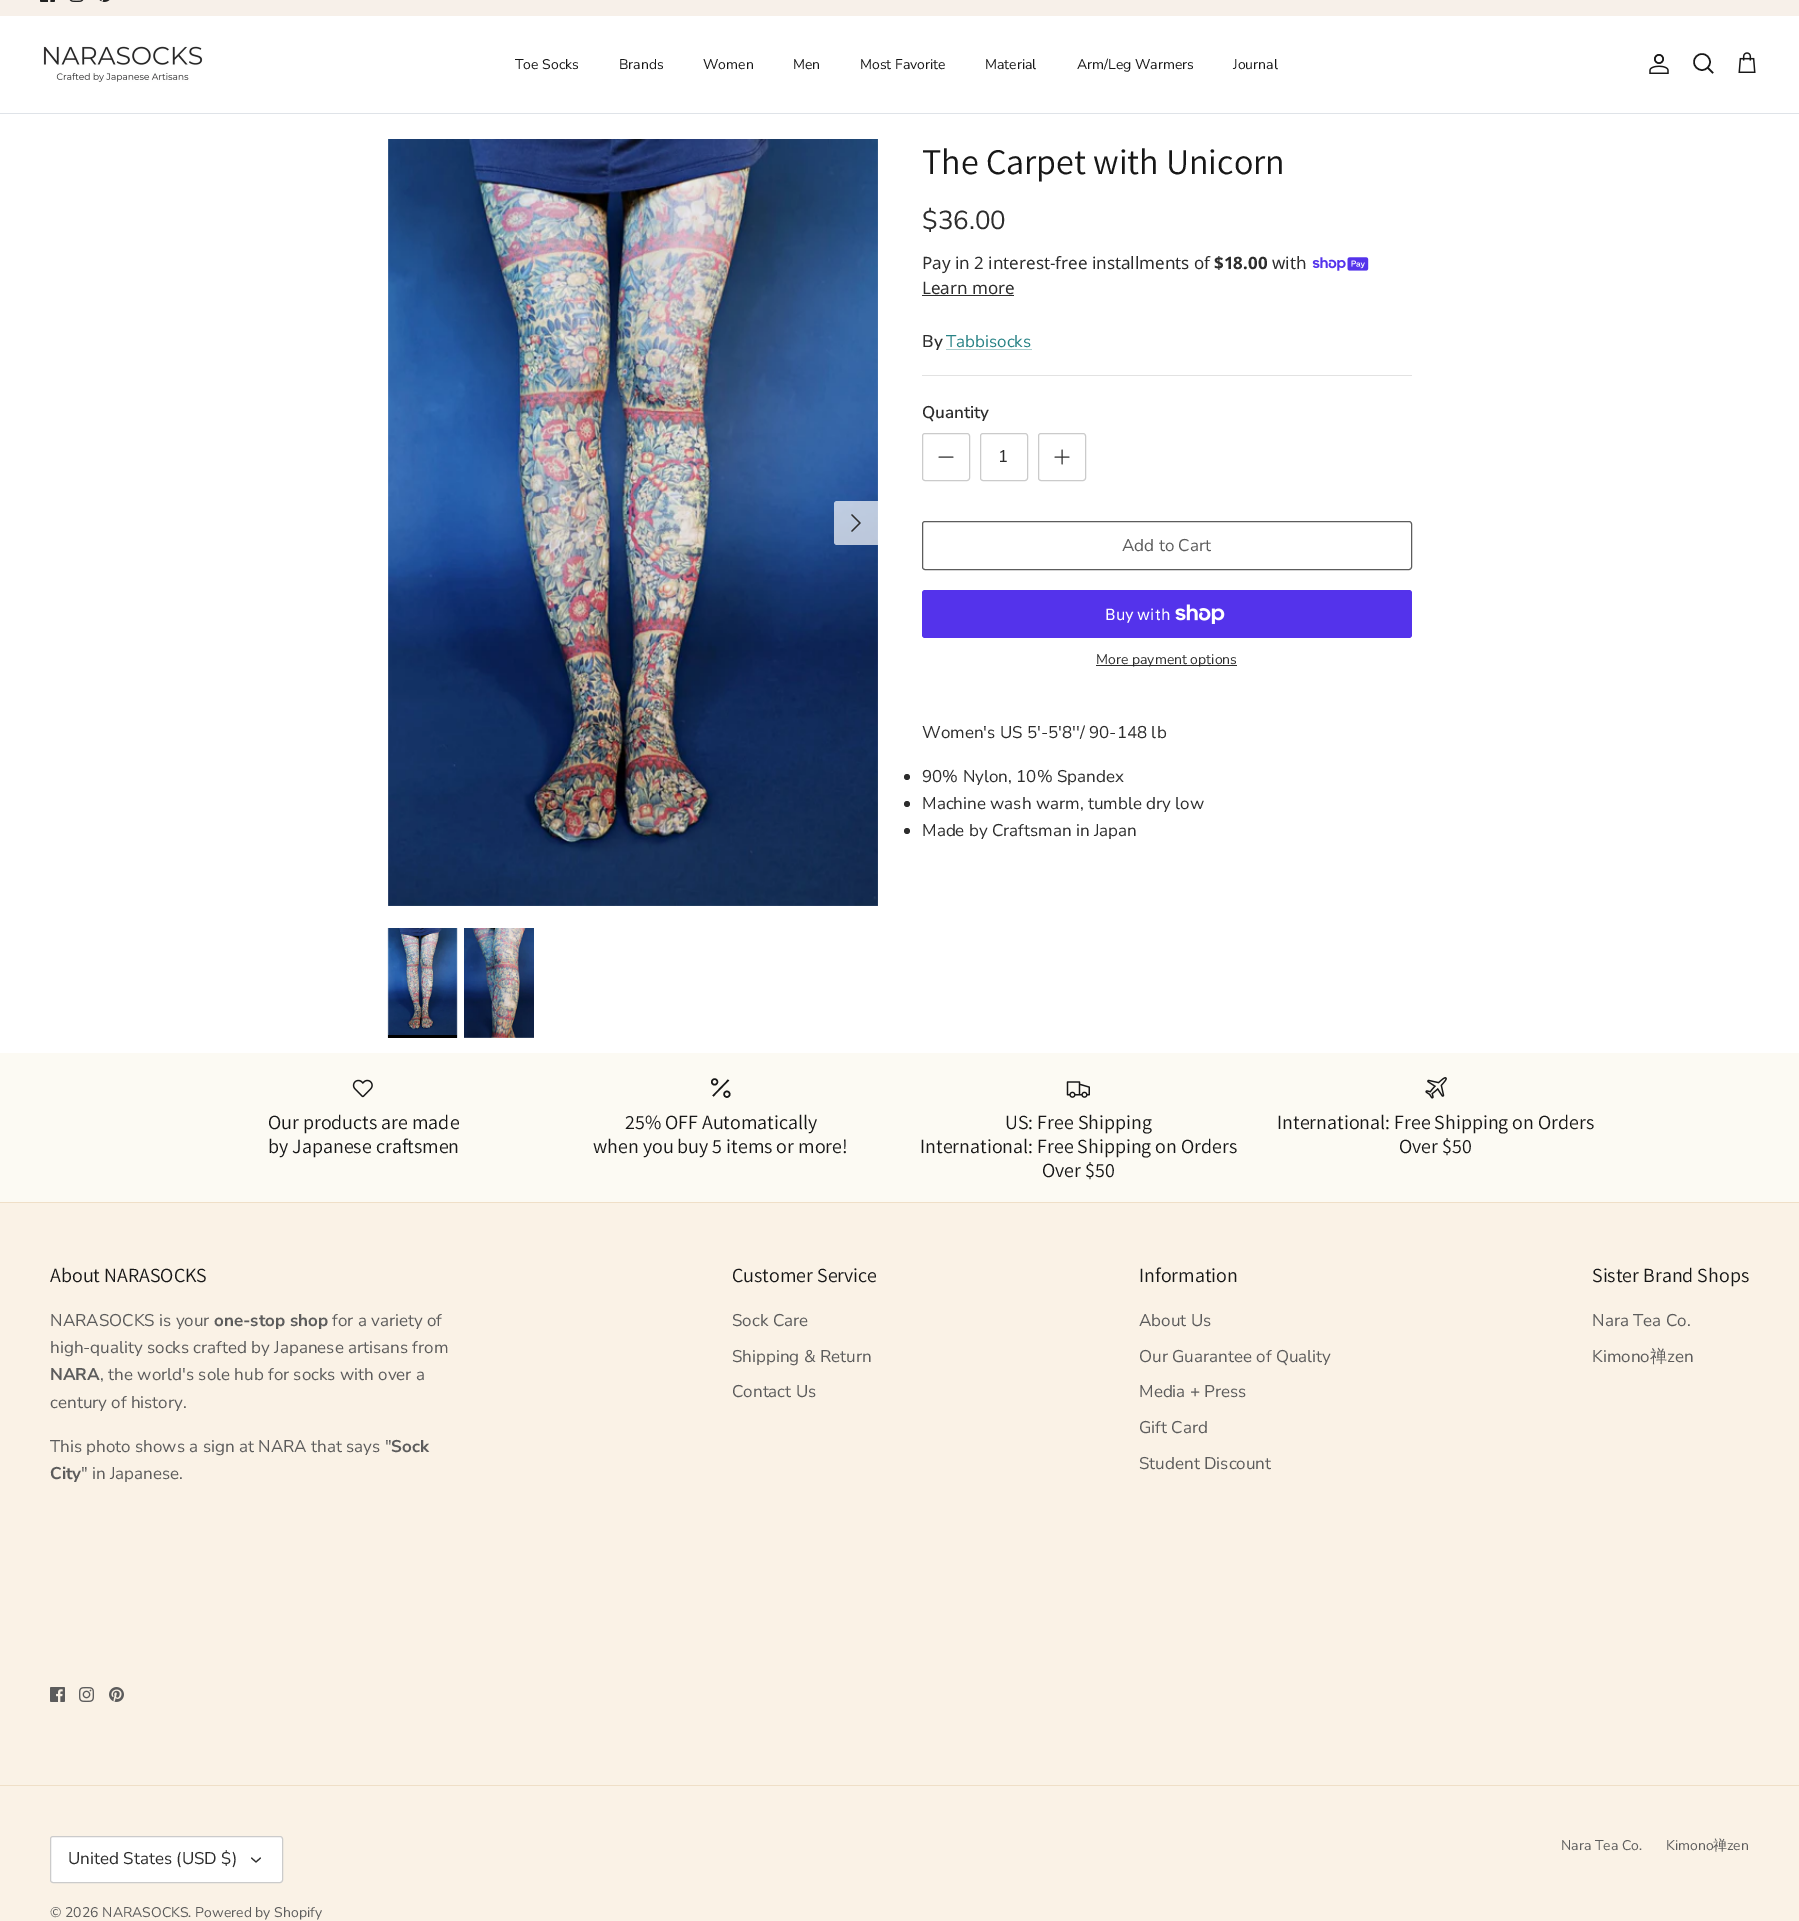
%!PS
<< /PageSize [1799 1921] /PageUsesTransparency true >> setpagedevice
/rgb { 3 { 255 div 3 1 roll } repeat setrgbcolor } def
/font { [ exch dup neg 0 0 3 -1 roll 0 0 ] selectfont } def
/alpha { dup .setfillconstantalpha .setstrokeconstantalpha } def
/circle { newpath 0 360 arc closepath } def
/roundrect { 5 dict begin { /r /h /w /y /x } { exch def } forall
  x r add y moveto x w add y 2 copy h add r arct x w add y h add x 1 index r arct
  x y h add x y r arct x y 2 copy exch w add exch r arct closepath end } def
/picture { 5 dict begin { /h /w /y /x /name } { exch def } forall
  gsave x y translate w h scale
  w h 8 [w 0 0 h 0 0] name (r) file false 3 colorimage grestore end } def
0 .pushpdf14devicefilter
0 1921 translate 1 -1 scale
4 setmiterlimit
255 255 255 rgb
0 0 1799 1921 rectfill
247 240 233 rgb
0 0 1799 16 rectfill
(img/1.rgb) 40 0 15 2 picture
(img/2.rgb) 69 0 15 2 picture
(img/3.rgb) 99 0 11 2 picture
223 227 232 rgb
0 113 1799 1 rectfill
(img/4.rgb) 43 46 160 36 picture
(img/5.rgb) 1649 54 20 20 picture
23 23 23 rgb
1.5 setlinewidth
1702 62 8 circle stroke
2 setlinecap
1708 68 moveto 1712.5 72.5 lineto stroke
(img/6.rgb) 1738 52 18 21 picture
(img/7.rgb) 388 139 490 767 picture
0.7 alpha
255 255 255 rgb
837 501 moveto 878 501 lineto 878 545 lineto 837 545 lineto 835.5 545 834 543.5 834 542 curveto 834 504 lineto 834 502.5 835.5 501 837 501 curveto closepath fill
1 alpha
45 45 45 rgb
1.3 setlinewidth
1 setlinecap
1 setlinejoin
852 531 moveto 860 523 lineto 852 515 lineto stroke
(img/8.rgb) 387 928 71 110 picture
0 0 0 rgb
388 1035 69 3 rectfill
(img/9.rgb) 464 928 70 110 picture
(img/10.rgb) 1312 257 57 14 picture
[
  [922 295 92 1 45 45 45]
  [946 349 86 1 169 205 206]
  [922 375 490 1 226 226 226]
] { aload pop rgb rectfill } forall
203 203 203 rgb
1 setlinewidth
0 setlinecap
0 setlinejoin
922.5 433.5 47 47 2.5 roundrect stroke
45 45 45 rgb
1 setlinecap
1 setlinejoin
939 457 moveto 953 457 lineto stroke
203 203 203 rgb
0 setlinecap
0 setlinejoin
980.5 433.5 47 47 2.5 roundrect stroke
1038.5 433.5 47 47 2.5 roundrect stroke
45 45 45 rgb
1 setlinecap
1 setlinejoin
1062 450 moveto 1062 464 lineto 1055 457 moveto 1069 457 lineto stroke
92 92 92 rgb
0 setlinecap
0 setlinejoin
922.5 521.5 489 48 2.5 roundrect stroke
84 51 235 rgb
922 590 490 48 3 roundrect fill
(img/11.rgb) 1175 604 50 20 picture
45 45 45 rgb
1096 665 141 1 rectfill
907 777 3 circle fill
907 804 3 circle fill
907 831 3 circle fill
250 242 230 rgb
0 1203 1799 718 rectfill
252 250 243 rgb
0 1053 1799 149 rectfill
(img/12.rgb) 352 1079 21 19 picture
23 23 23 rgb
1.5 setlinewidth
728.5 1080 moveto 713 1096 lineto stroke
714.6 1081.9 2.8 circle stroke
726.9 1094.2 2.8 circle stroke
(img/13.rgb) 1066 1081 24 17 picture
(img/14.rgb) 1425 1077 22 22 picture
239 223 199 rgb
0 1202 1799 1 rectfill
(img/15.rgb) 50 1687 15 15 picture
(img/16.rgb) 79 1687 15 15 picture
(img/17.rgb) 109 1687 15 15 picture
0 1785 1799 1 rectfill
255 255 255 rgb
50.5 1836.5 232 46 2.5 roundrect gsave fill grestore
203 203 203 rgb
1 setlinewidth
stroke
45 45 45 rgb
1.1 setlinewidth
1 setlinecap
1 setlinejoin
251.5 1858 moveto 256 1862 lineto 260.5 1858 lineto stroke
/NunitoSans-Regular 14 font
23 23 23 rgb
[
  [(Toe Socks) 515 69]
  [(Brands) 619 69]
  [(Women) 703 69]
  [(Men) 793 69]
  [(Most Favorite) 860 69]
  [(Material) 985 69]
  [(Arm/Leg Warmers) 1077 69]
  [(Journal) 1233 69]
] { aload pop moveto show } forall
/Assistant-Regular 36 font
922 174 moveto (The Carpet with Unicorn) show
/NunitoSans-Regular 26 font
45 45 45 rgb
922 229 moveto ($36.00) show
/NotoSans-Regular 17 font
922 269 moveto (Pay in 2 interest-free installments of) show
/NotoSans-Bold 17 font
1214 269 moveto ($18.00) show
/NotoSans-Regular 17 font
1272 269 moveto (with) show
922 294 moveto (Learn more) show
/NunitoSans-SemiBold 17 font
922 347 moveto (By) show
/NunitoSans-Regular 17 font
39 130 133 rgb
946 347 moveto (Tabbisocks) show
/NunitoSans-SemiBold 17 font
45 45 45 rgb
922 418 moveto (Quantity) show
/NunitoSans-Regular 17 font
998 462 moveto (1) show
92 92 92 rgb
1122 551 moveto (Add to Cart) show
/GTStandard-Regular 16 font
255 255 255 rgb
1105 620 moveto (Buy with) show
/NunitoSans-Regular 14 font
45 45 45 rgb
1096 664 moveto (More payment options) show
/NunitoSans-Regular 17 font
[
  [(Women's US 5'-5'8''/ 90-148 lb) 922 738]
  [(90% Nylon, 10% Spandex) 922 782]
  [(Machine wash warm, tumble dry low) 922 809]
  [(Made by Craftsman in Japan) 922 836]
] { aload pop moveto show } forall
/Assistant-Regular 20 font
23 23 23 rgb
[
  [(Our products are made) 268 1129]
  [(by Japanese craftsmen) 268 1153]
  [(25% OFF Automatically) 625 1129]
  [(when you buy 5 items or more!) 593 1153]
  [(US: Free Shipping) 1005 1129]
  [(International: Free Shipping on Orders) 920 1153]
  [(Over $50) 1042 1177]
  [(International: Free Shipping on Orders) 1277 1129]
  [(Over $50) 1399 1153]
  [(About NARASOCKS) 50 1282]
] { aload pop moveto show } forall
/NunitoSans-Regular 17 font
92 92 92 rgb
50 1326 moveto (NARASOCKS is your) show
/NunitoSans-Bold 17 font
214 1326 moveto (one-stop shop) show
/NunitoSans-Regular 17 font
332 1326 moveto (for a variety of) show
50 1353 moveto (high-quality socks crafted by Japanese artisans from) show
/NunitoSans-Bold 17 font
50 1380 moveto (NARA) show
/NunitoSans-Regular 17 font
[
  [(, the world's sole hub for socks with over a) 100 1380]
  [(century of history.) 50 1408]
  [(This photo shows a sign at NARA that says ") 50 1452]
] { aload pop moveto show } forall
/NunitoSans-Bold 17 font
391 1452 moveto (Sock) show
50 1479 moveto (City) show
/NunitoSans-Regular 17 font
81 1479 moveto (" in Japanese.) show
/Assistant-Regular 20 font
23 23 23 rgb
732 1282 moveto (Customer Service) show
/NunitoSans-Regular 17 font
92 92 92 rgb
[
  [(Sock Care) 732 1326]
  [(Shipping & Return) 732 1362]
  [(Contact Us) 732 1397]
] { aload pop moveto show } forall
/Assistant-Regular 20 font
23 23 23 rgb
1139 1282 moveto (Information) show
/NunitoSans-Regular 17 font
92 92 92 rgb
[
  [(About Us) 1139 1326]
  [(Our Guarantee of Quality) 1139 1362]
  [(Media + Press) 1139 1397]
  [(Gift Card) 1139 1433]
  [(Student Discount) 1139 1469]
] { aload pop moveto show } forall
/Assistant-Regular 20 font
23 23 23 rgb
1592 1282 moveto (Sister Brand Shops) show
/NunitoSans-Regular 17 font
92 92 92 rgb
1592 1326 moveto (Nara Tea Co.) show
1592 1362 moveto (Kimono) show
/WenQuanYiZenHei-Medium 17 font
1650 1362 moveto (禅) show
/NunitoSans-Regular 17 font
1667 1362 moveto (zen) show
/NunitoSans-Regular 14 font
1561 1850 moveto (Nara Tea Co.) show
1666 1850 moveto (Kimono) show
/WenQuanYiZenHei-Medium 14 font
1713 1850 moveto (禅) show
/NunitoSans-Regular 14 font
1727 1850 moveto (zen) show
/NunitoSans-Regular 17 font
45 45 45 rgb
68 1864 moveto (United States \(USD $\)) show
/NunitoSans-Regular 14 font
92 92 92 rgb
50 1917 moveto (© 2026 NARASOCKS. Powered by Shopify) show
.poppdf14devicefilter showpage
